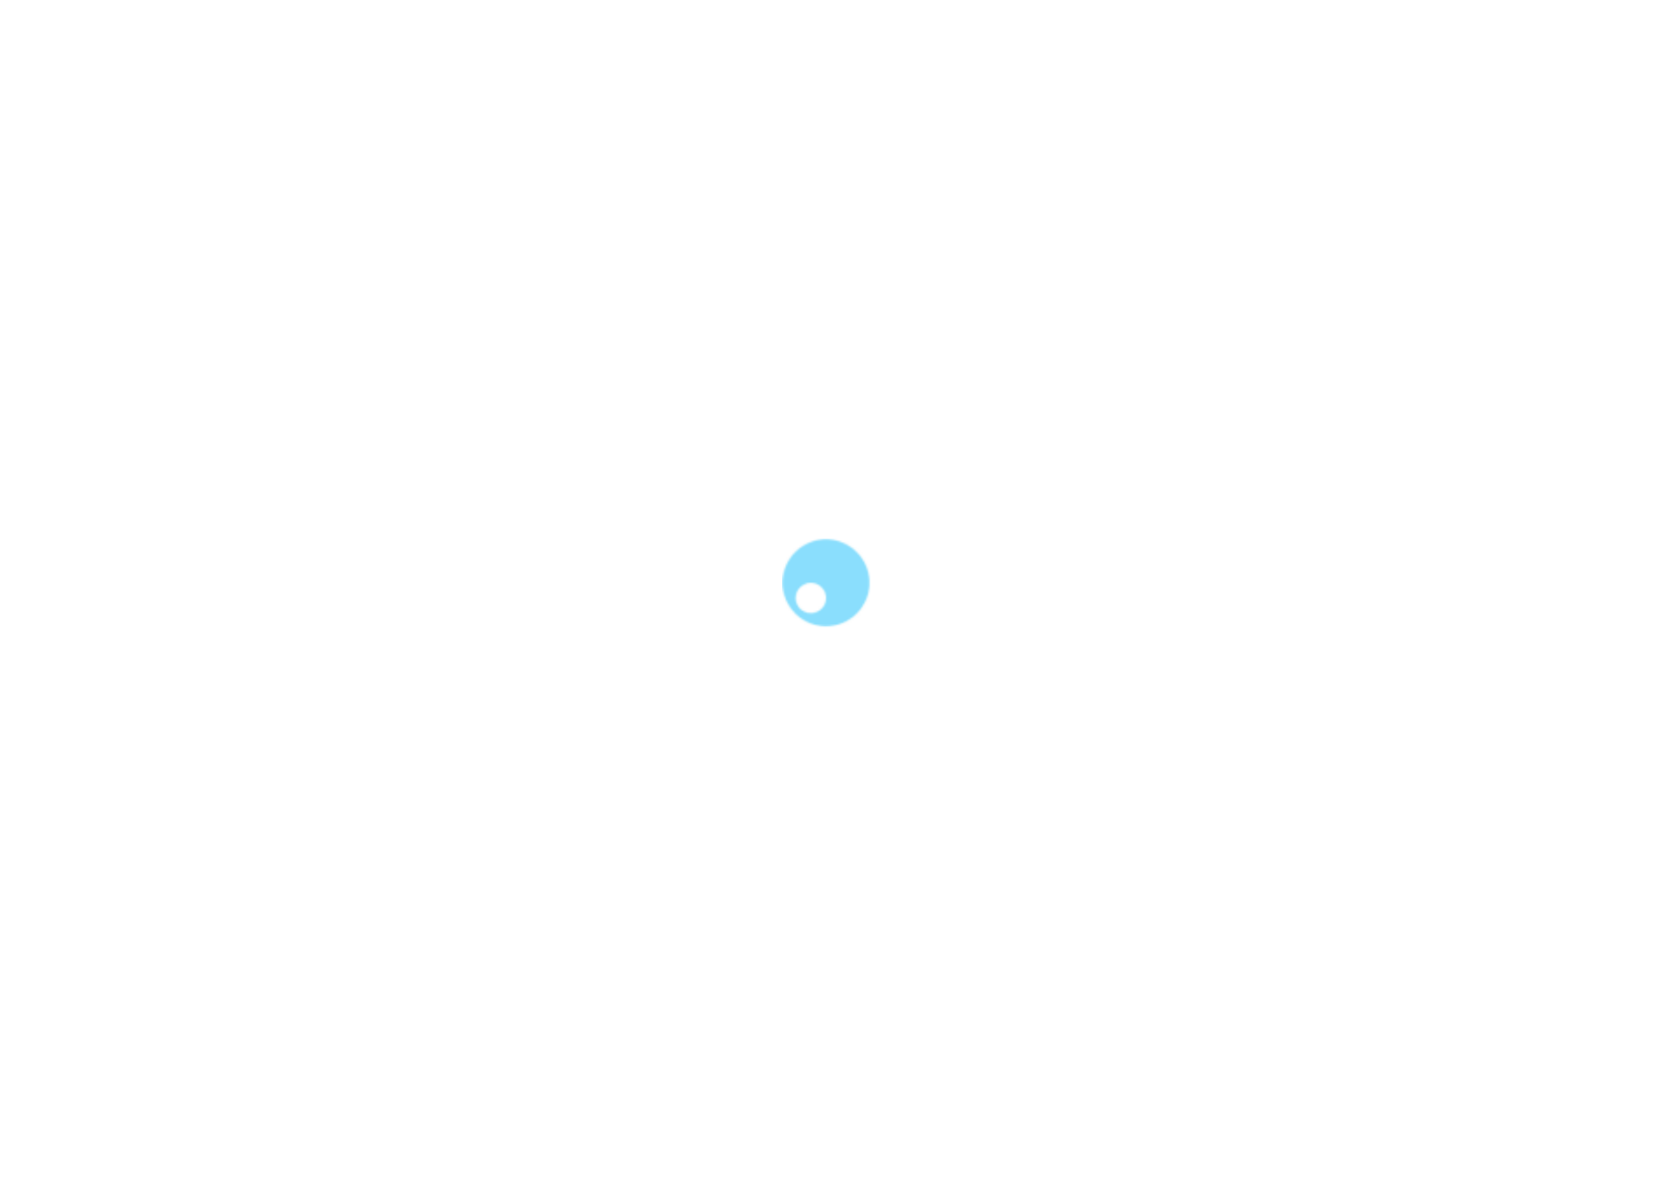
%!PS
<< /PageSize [1680 1191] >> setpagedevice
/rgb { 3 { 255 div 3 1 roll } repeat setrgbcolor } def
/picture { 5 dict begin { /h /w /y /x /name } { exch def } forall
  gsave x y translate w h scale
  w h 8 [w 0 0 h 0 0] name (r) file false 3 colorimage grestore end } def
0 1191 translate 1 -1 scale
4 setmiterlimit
255 255 255 rgb
0 0 1680 1191 rectfill
(img/1.rgb) 782 538 89 90 picture
showpage
